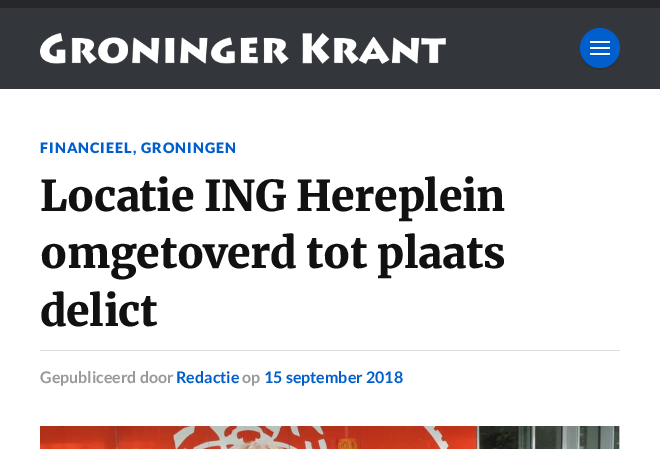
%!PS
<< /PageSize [660 449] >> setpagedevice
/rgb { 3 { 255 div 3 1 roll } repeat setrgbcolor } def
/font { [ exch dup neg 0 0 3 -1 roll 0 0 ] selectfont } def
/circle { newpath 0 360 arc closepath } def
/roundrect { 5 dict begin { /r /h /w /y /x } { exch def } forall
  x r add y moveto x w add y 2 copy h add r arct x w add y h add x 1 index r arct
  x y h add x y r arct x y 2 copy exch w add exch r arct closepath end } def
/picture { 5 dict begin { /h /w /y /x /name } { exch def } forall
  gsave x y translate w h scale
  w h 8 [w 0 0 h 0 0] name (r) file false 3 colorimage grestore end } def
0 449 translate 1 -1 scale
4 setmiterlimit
255 255 255 rgb
0 0 660 449 rectfill
51 54 59 rgb
0 8 660 81 rectfill
38 39 43 rgb
0 0 660 8 rectfill
(img/1.rgb) 40 33 406 31 picture
46 49 53 rgb
620 49 moveto 619 74 581 74 580 49 curveto 579 77 621 77 620 49 curveto closepath fill
0 95 204 rgb
600 48 20 circle fill
0 86 184 rgb
590 42.5 moveto 589 44 592 44 594 44 curveto 606 44 lineto 608 44 611 44 610 42.5 curveto 609 43 lineto 591 43 lineto closepath fill
255 255 255 rgb
590 41 20 2 1 roundrect fill
0 86 184 rgb
590 48.5 moveto 589 50 592 50 594 50 curveto 606 50 lineto 608 50 611 50 610 48.5 curveto 609 49 lineto 591 49 lineto closepath fill
255 255 255 rgb
590 47 20 2 1 roundrect fill
0 86 184 rgb
590 54.5 moveto 589 56 592 56 594 56 curveto 606 56 lineto 608 56 611 56 610 54.5 curveto 609 55 lineto 591 55 lineto closepath fill
255 255 255 rgb
590 53 20 2 1 roundrect fill
221 221 221 rgb
40 350 580 1 rectfill
(img/2.rgb) 40 426 580 23 picture
/Lato-Black 14.4 font
0 95 204 rgb
40 153 moveto 1 0 (FINANCIEEL, GRONINGEN) ashow
/Merriweather-Black 42.5 font
17 17 17 rgb
40 211 moveto -0.4 0 (Locatie ING Hereplein) ashow
40 268 moveto -0.4 0 (omgetoverd tot plaats) ashow
40 326 moveto -0.4 0 (delict) ashow
/Lato-Bold 16 font
153 153 153 rgb
40 383 moveto (Gepubliceerd door) show
0 95 204 rgb
176 383 moveto (Redactie) show
153 153 153 rgb
242 383 moveto (op) show
0 95 204 rgb
264 383 moveto (15 september 2018) show
showpage
